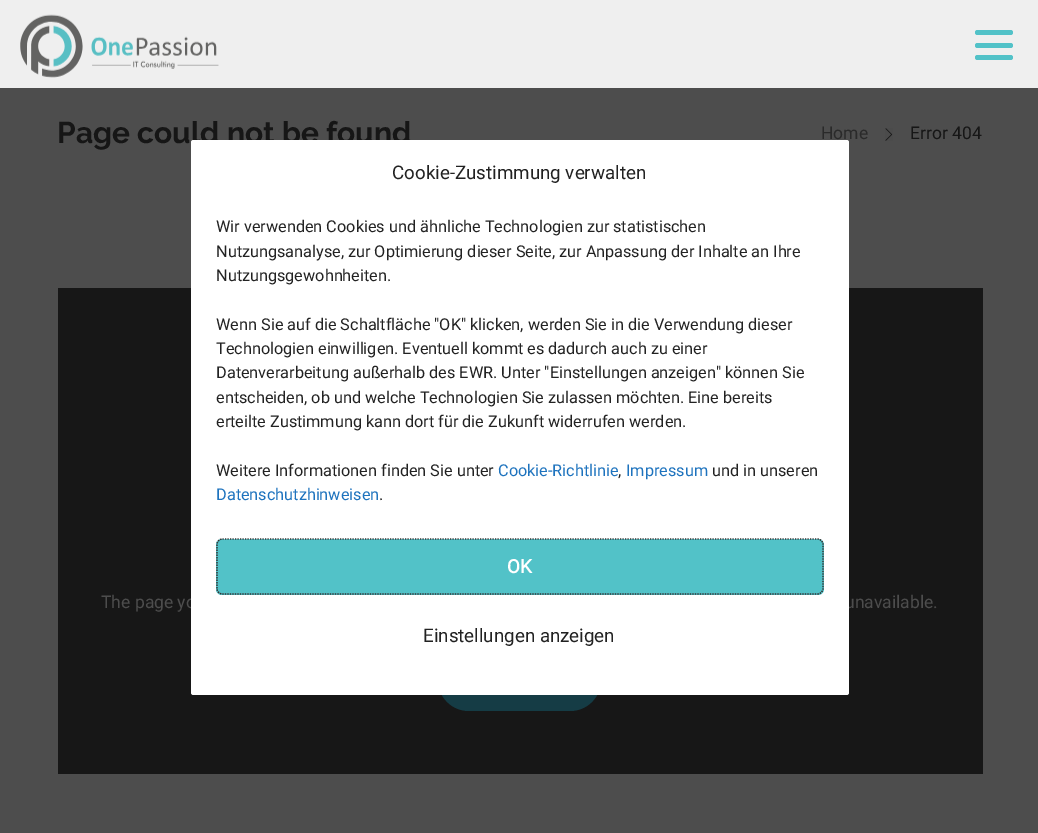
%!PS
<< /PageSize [1038 833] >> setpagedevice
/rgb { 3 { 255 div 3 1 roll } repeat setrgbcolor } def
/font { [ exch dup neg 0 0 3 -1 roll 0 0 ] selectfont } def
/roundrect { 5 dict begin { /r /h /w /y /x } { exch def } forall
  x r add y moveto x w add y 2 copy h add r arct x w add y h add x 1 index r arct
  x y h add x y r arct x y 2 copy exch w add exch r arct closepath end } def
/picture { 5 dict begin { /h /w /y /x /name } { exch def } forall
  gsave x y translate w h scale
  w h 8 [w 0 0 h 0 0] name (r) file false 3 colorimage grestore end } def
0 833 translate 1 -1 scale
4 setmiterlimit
77 77 77 rgb
0 0 1038 833 rectfill
239 239 239 rgb
0 0 1038 88 rectfill
(img/1.rgb) 20 14 199 64 picture
82 194 200 rgb
975 30 38 5 2.5 roundrect fill
975 43 38 5 2.5 roundrect fill
975 55 38 5 2.5 roundrect fill
(img/2.rgb) 885 128 8 13 picture
23 23 23 rgb
58 288 925 486 rectfill
21 60 69 rgb
438 649 163 62 31 roundrect fill
/Raleway-Bold 30 font
22 22 22 rgb
57 143 moveto (Page could not be found) show
/Roboto-Regular 17.5 font
42 42 42 rgb
821 139 moveto (Home) show
22 22 22 rgb
910 139 moveto (Error 404) show
77 77 77 rgb
101 608 moveto (The page yo) show
845 608 moveto (unavailable.) show
255 255 255 rgb
191 140 658 555 2.5 roundrect fill
/Roboto-Regular 18.75 font
34 34 34 rgb
392 179 moveto (Cookie-Zustimmung verwalten) show
/Roboto-Regular 16.25 font
[
  [(Wir verwenden Cookies und ähnliche Technologien zur statistischen) 216 232]
  [(Nutzungsanalyse, zur Optimierung dieser Seite, zur Anpassung der Inhalte an Ihre) 216 257]
  [(Nutzungsgewohnheiten.) 216 281]
  [(Wenn Sie auf die Schaltfläche "OK" klicken, werden Sie in die Verwendung dieser) 216 330]
  [(Technologien einwilligen. Eventuell kommt es dadurch auch zu einer) 216 354]
  [(Datenverarbeitung außerhalb des EWR. Unter "Einstellungen anzeigen" können Sie) 216 378]
  [(entscheiden, ob und welche Technologien Sie zulassen möchten. Eine bereits) 216 403]
  [(erteilte Zustimmung kann dort für die Zukunft widerrufen werden.) 216 427]
  [(Weitere Informationen finden Sie unter) 216 476]
] { aload pop moveto show } forall
30 115 190 rgb
498 476 moveto (Cookie-Richtlinie) show
34 34 34 rgb
618 476 moveto (,) show
30 115 190 rgb
626 476 moveto (Impressum) show
34 34 34 rgb
712 476 moveto (und in unseren) show
30 115 190 rgb
216 500 moveto (Datenschutzhinweisen) show
34 34 34 rgb
379 500 moveto (.) show
82 194 200 rgb
216 539 608 56 6 roundrect fill
51 51 51 rgb
1.2 setlinewidth
[1.25 1.25] 0 setdash
222.5 539 moveto 817.5 539 lineto 820.5 539 823 541.5 823 544.5 curveto 823 588.5 lineto 823 591.5 820.5 594 817.5 594 curveto 222.5 594 lineto 219.5 594 217 591.5 217 588.5 curveto 217 544.5 lineto 217 541.5 219.5 539 222.5 539 curveto closepath stroke
/Roboto-Bold 18.75 font
255 255 255 rgb
507 573 moveto (OK) show
/Roboto-Regular 18.75 font
34 34 34 rgb
423 642 moveto (Einstellungen anzeigen) show
showpage
